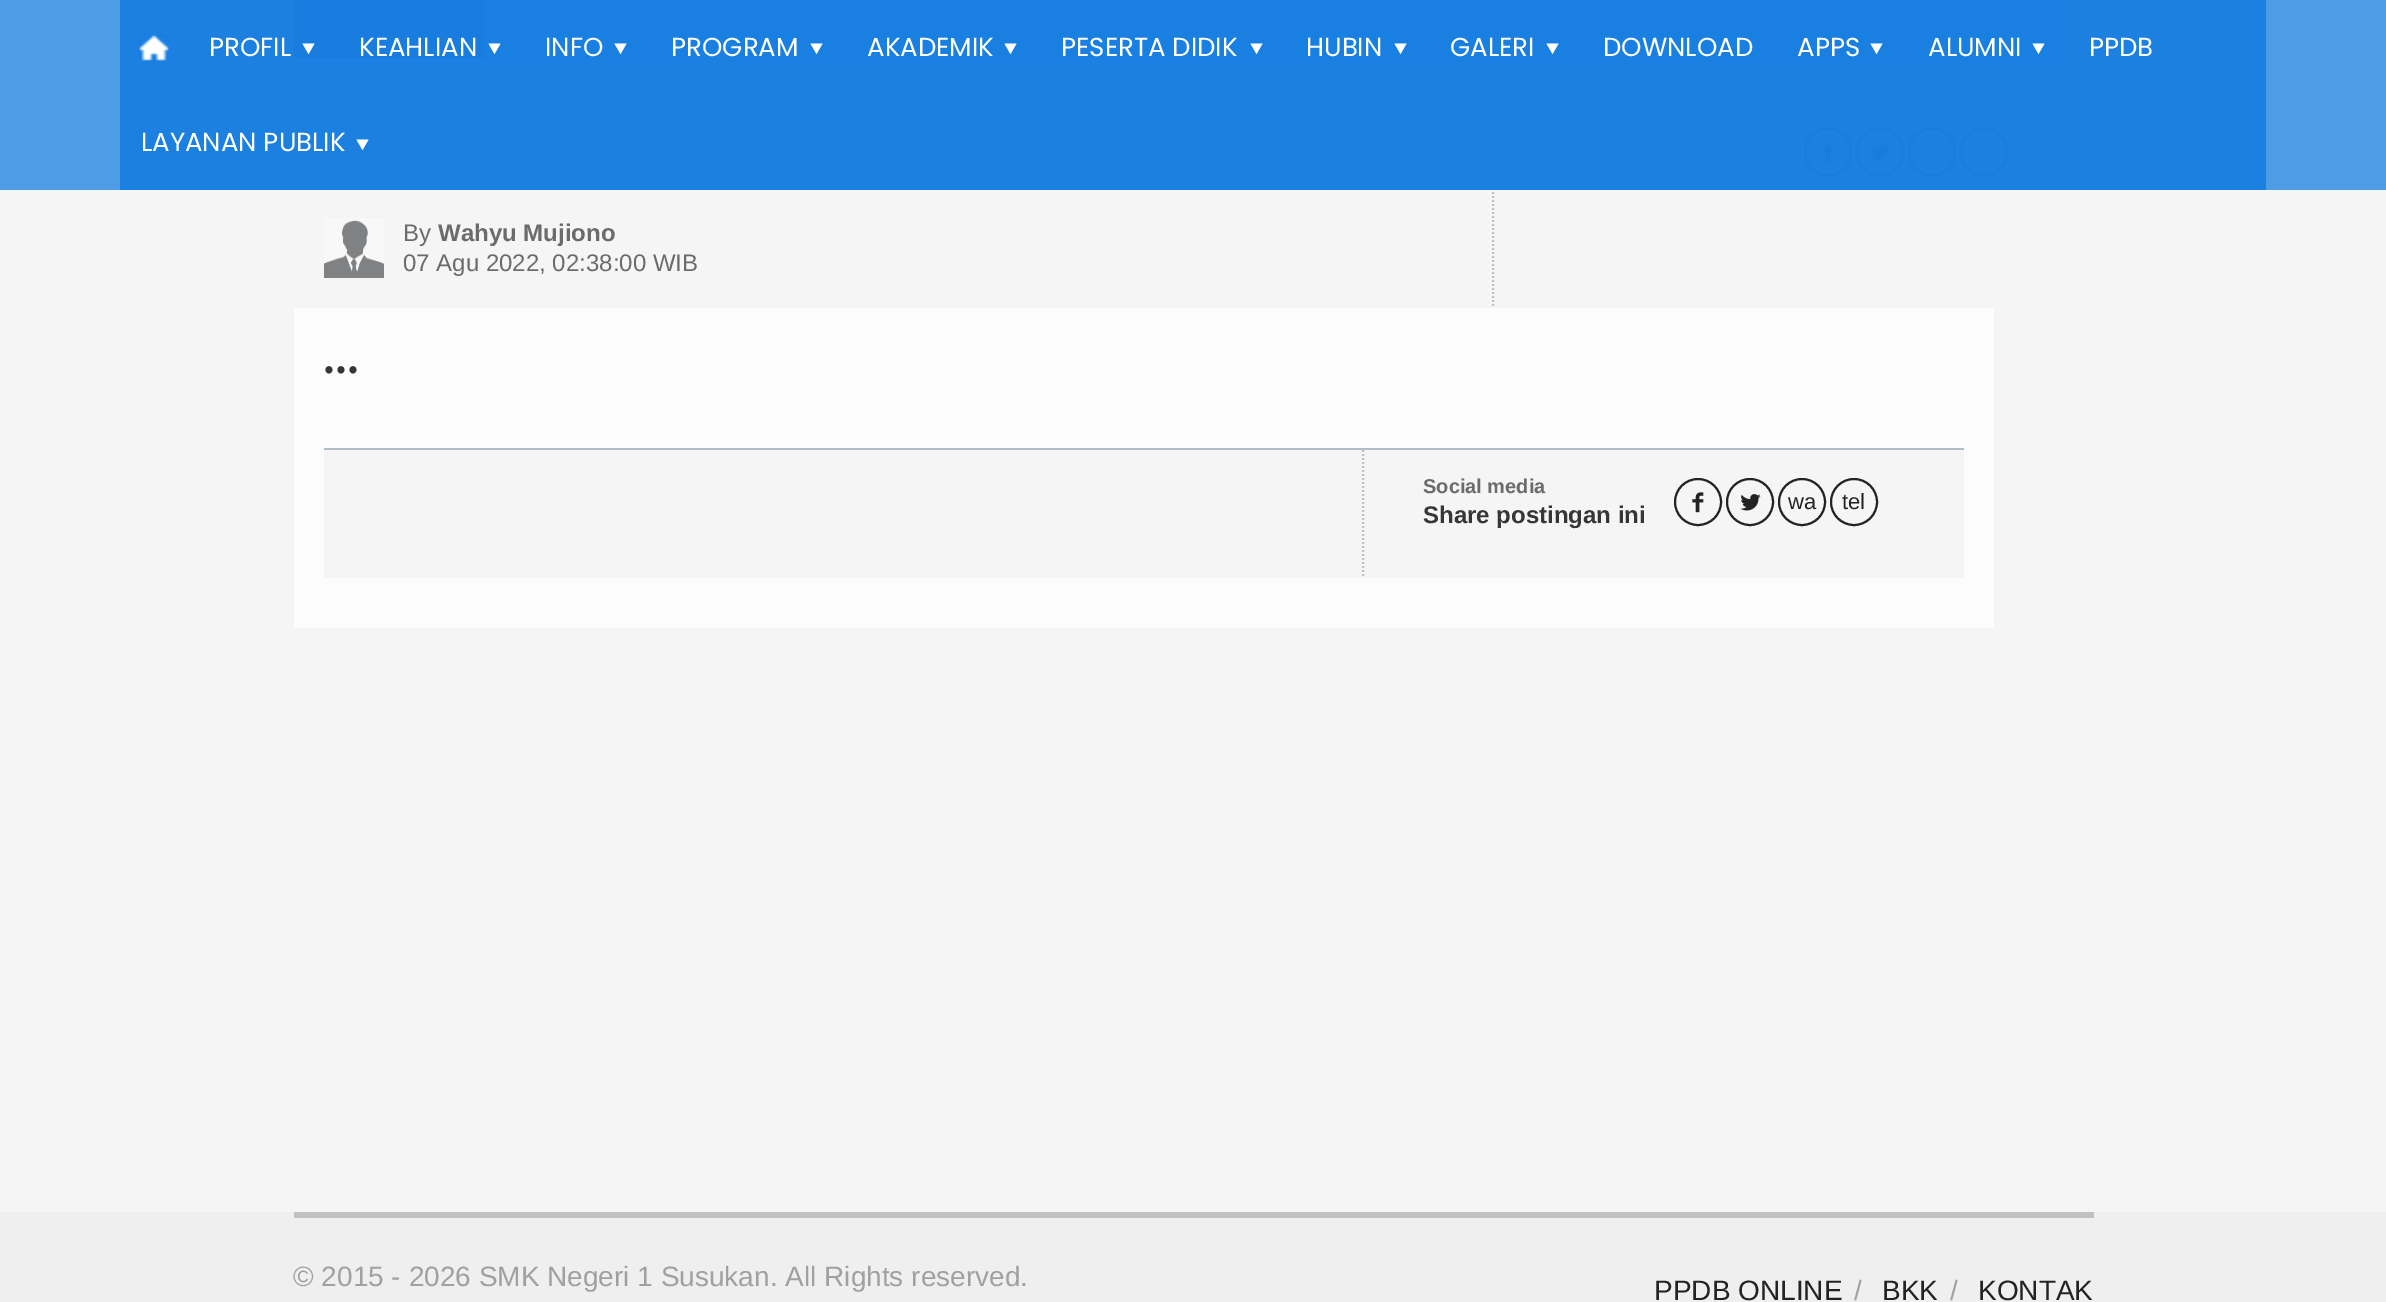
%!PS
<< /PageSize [2386 1302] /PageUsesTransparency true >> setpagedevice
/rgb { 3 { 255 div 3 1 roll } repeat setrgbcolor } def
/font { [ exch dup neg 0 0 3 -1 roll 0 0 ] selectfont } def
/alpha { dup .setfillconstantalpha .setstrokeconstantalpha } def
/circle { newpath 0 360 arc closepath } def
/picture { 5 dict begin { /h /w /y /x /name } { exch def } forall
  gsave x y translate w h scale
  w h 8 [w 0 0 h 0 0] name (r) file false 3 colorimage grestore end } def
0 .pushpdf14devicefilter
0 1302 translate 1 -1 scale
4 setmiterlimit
245 245 245 rgb
0 0 2386 1302 rectfill
[
  [294 58 1772 6 235 235 235]
  [484 0 1582 58 255 255 255]
  [294 0 190 58 229 20 0]
  [294 98 1800 2 176 190 197]
] { aload pop rgb rectfill } forall
193 193 193 rgb
2 setlinewidth
[2 2] 0 setdash
1493 100 moveto 1493 308 lineto stroke
35 35 35 rgb
[] 0 setdash
1828 152 23 circle stroke
(img/3.rgb) 1822 142 12 21 picture
1880 152 23 circle stroke
(img/4.rgb) 1870 144 21 17 picture
1932 152 23 circle stroke
1984 152 23 circle stroke
0.75 alpha
[
  [0 0 2386 190 24 126 225]
  [120 0 2146 190 24 126 225]
  [120 0 2146 190 24 126 225]
] { aload pop rgb rectfill } forall
1 alpha
(img/1.rgb) 139 35 30 26 picture
0.75 alpha
294 0 44 58 rectfill
1 alpha
255 255 255 rgb
314.5 43.5 moveto 308.5 54 lineto 302.5 43.5 lineto closepath fill
0.75 alpha
24 126 225 rgb
338 0 186 58 rectfill
1 alpha
255 255 255 rgb
500.5 43.5 moveto 494.5 54 lineto 488.5 43.5 lineto closepath fill
0.75 alpha
24 126 225 rgb
524 0 126 58 rectfill
1 alpha
255 255 255 rgb
626.5 43.5 moveto 620.5 54 lineto 614.5 43.5 lineto closepath fill
0.75 alpha
24 126 225 rgb
650 0 194 58 rectfill
1 alpha
255 255 255 rgb
822.5 43.5 moveto 816.5 54 lineto 810.5 43.5 lineto closepath fill
0.75 alpha
24 126 225 rgb
844 0 196 58 rectfill
1 alpha
255 255 255 rgb
1016.5 43.5 moveto 1010.5 54 lineto 1004.5 43.5 lineto closepath fill
0.75 alpha
24 126 225 rgb
1040 0 244 58 rectfill
1 alpha
255 255 255 rgb
1262.5 43.5 moveto 1256.5 54 lineto 1250.5 43.5 lineto closepath fill
0.75 alpha
24 126 225 rgb
1284 0 144 58 rectfill
1 alpha
255 255 255 rgb
1406.5 43.5 moveto 1400.5 54 lineto 1394.5 43.5 lineto closepath fill
0.75 alpha
24 126 225 rgb
1428 0 152 58 rectfill
1 alpha
255 255 255 rgb
1558.5 43.5 moveto 1552.5 54 lineto 1546.5 43.5 lineto closepath fill
0.75 alpha
24 126 225 rgb
1580 0 194 58 rectfill
1774 0 132 58 rectfill
1 alpha
255 255 255 rgb
1882.5 43.5 moveto 1876.5 54 lineto 1870.5 43.5 lineto closepath fill
0.75 alpha
24 126 225 rgb
1906 0 160 58 rectfill
1 alpha
255 255 255 rgb
2044.5 43.5 moveto 2038.5 54 lineto 2032.5 43.5 lineto closepath fill
368.5 139.5 moveto 362.5 150 lineto 356.5 139.5 lineto closepath fill
(img/2.rgb) 324 218 60 60 picture
[
  [294 308 1700 320 252 252 252]
  [324 450 1640 128 245 245 245]
  [324 448 1640 2 176 190 197]
] { aload pop rgb rectfill } forall
193 193 193 rgb
[2 2] 0 setdash
1363 450 moveto 1363 578 lineto stroke
35 35 35 rgb
[] 0 setdash
1698 502 23 circle stroke
(img/3.rgb) 1692 492 12 21 picture
1750 502 23 circle stroke
(img/4.rgb) 1740 494 21 17 picture
1802 502 23 circle stroke
1854 502 23 circle stroke
240 239 239 rgb
0 1212 2386 90 rectfill
193 193 193 rgb
294 1212 1800 6 rectfill
/Poppins-Regular 26 font
255 255 255 rgb
[
  [(PROFIL) 209 56]
  [(KEAHLIAN) 359 56]
  [(INFO) 545 56]
  [(PROGRAM) 671 56]
  [(AKADEMIK) 867 56]
  [(PESERTA DIDIK) 1061 56]
  [(HUBIN) 1306 56]
  [(GALERI) 1450 56]
  [(DOWNLOAD) 1603 56]
  [(APPS) 1797 56]
  [(ALUMNI) 1928 56]
  [(PPDB) 2089 56]
  [(LAYANAN PUBLIK) 141 151]
] { aload pop moveto show } forall
/LiberationSans-Regular 24 font
107 107 107 rgb
403 241 moveto (By) show
/LiberationSans-Bold 24 font
438 241 moveto (Wahyu Mujiono) show
/LiberationSans-Regular 24 font
403 271 moveto (07 Agu 2022, 02:38:00 WIB) show
/SourceSansPro-Bold 40 font
54 54 53 rgb
323 373 moveto (...) show
/LiberationSans-Bold 20 font
107 107 107 rgb
1423 493 moveto (Social media) show
/LiberationSans-Bold 24 font
54 54 53 rgb
1423 523 moveto (Share postingan ini) show
/LiberationSans-Regular 22 font
35 35 35 rgb
1788 509 moveto (wa) show
1842 509 moveto (tel) show
/LiberationSans-Regular 28 font
160 160 160 rgb
293 1286 moveto (© 2015 - 2026 SMK Negeri 1 Susukan. All Rights reserved.) show
35 35 35 rgb
1654 1300 moveto (PPDB ONLINE) show
160 160 160 rgb
1854 1300 moveto (/) show
35 35 35 rgb
1882 1300 moveto (BKK) show
160 160 160 rgb
1950 1300 moveto (/) show
35 35 35 rgb
1978 1300 moveto (KONTAK) show
.poppdf14devicefilter showpage
